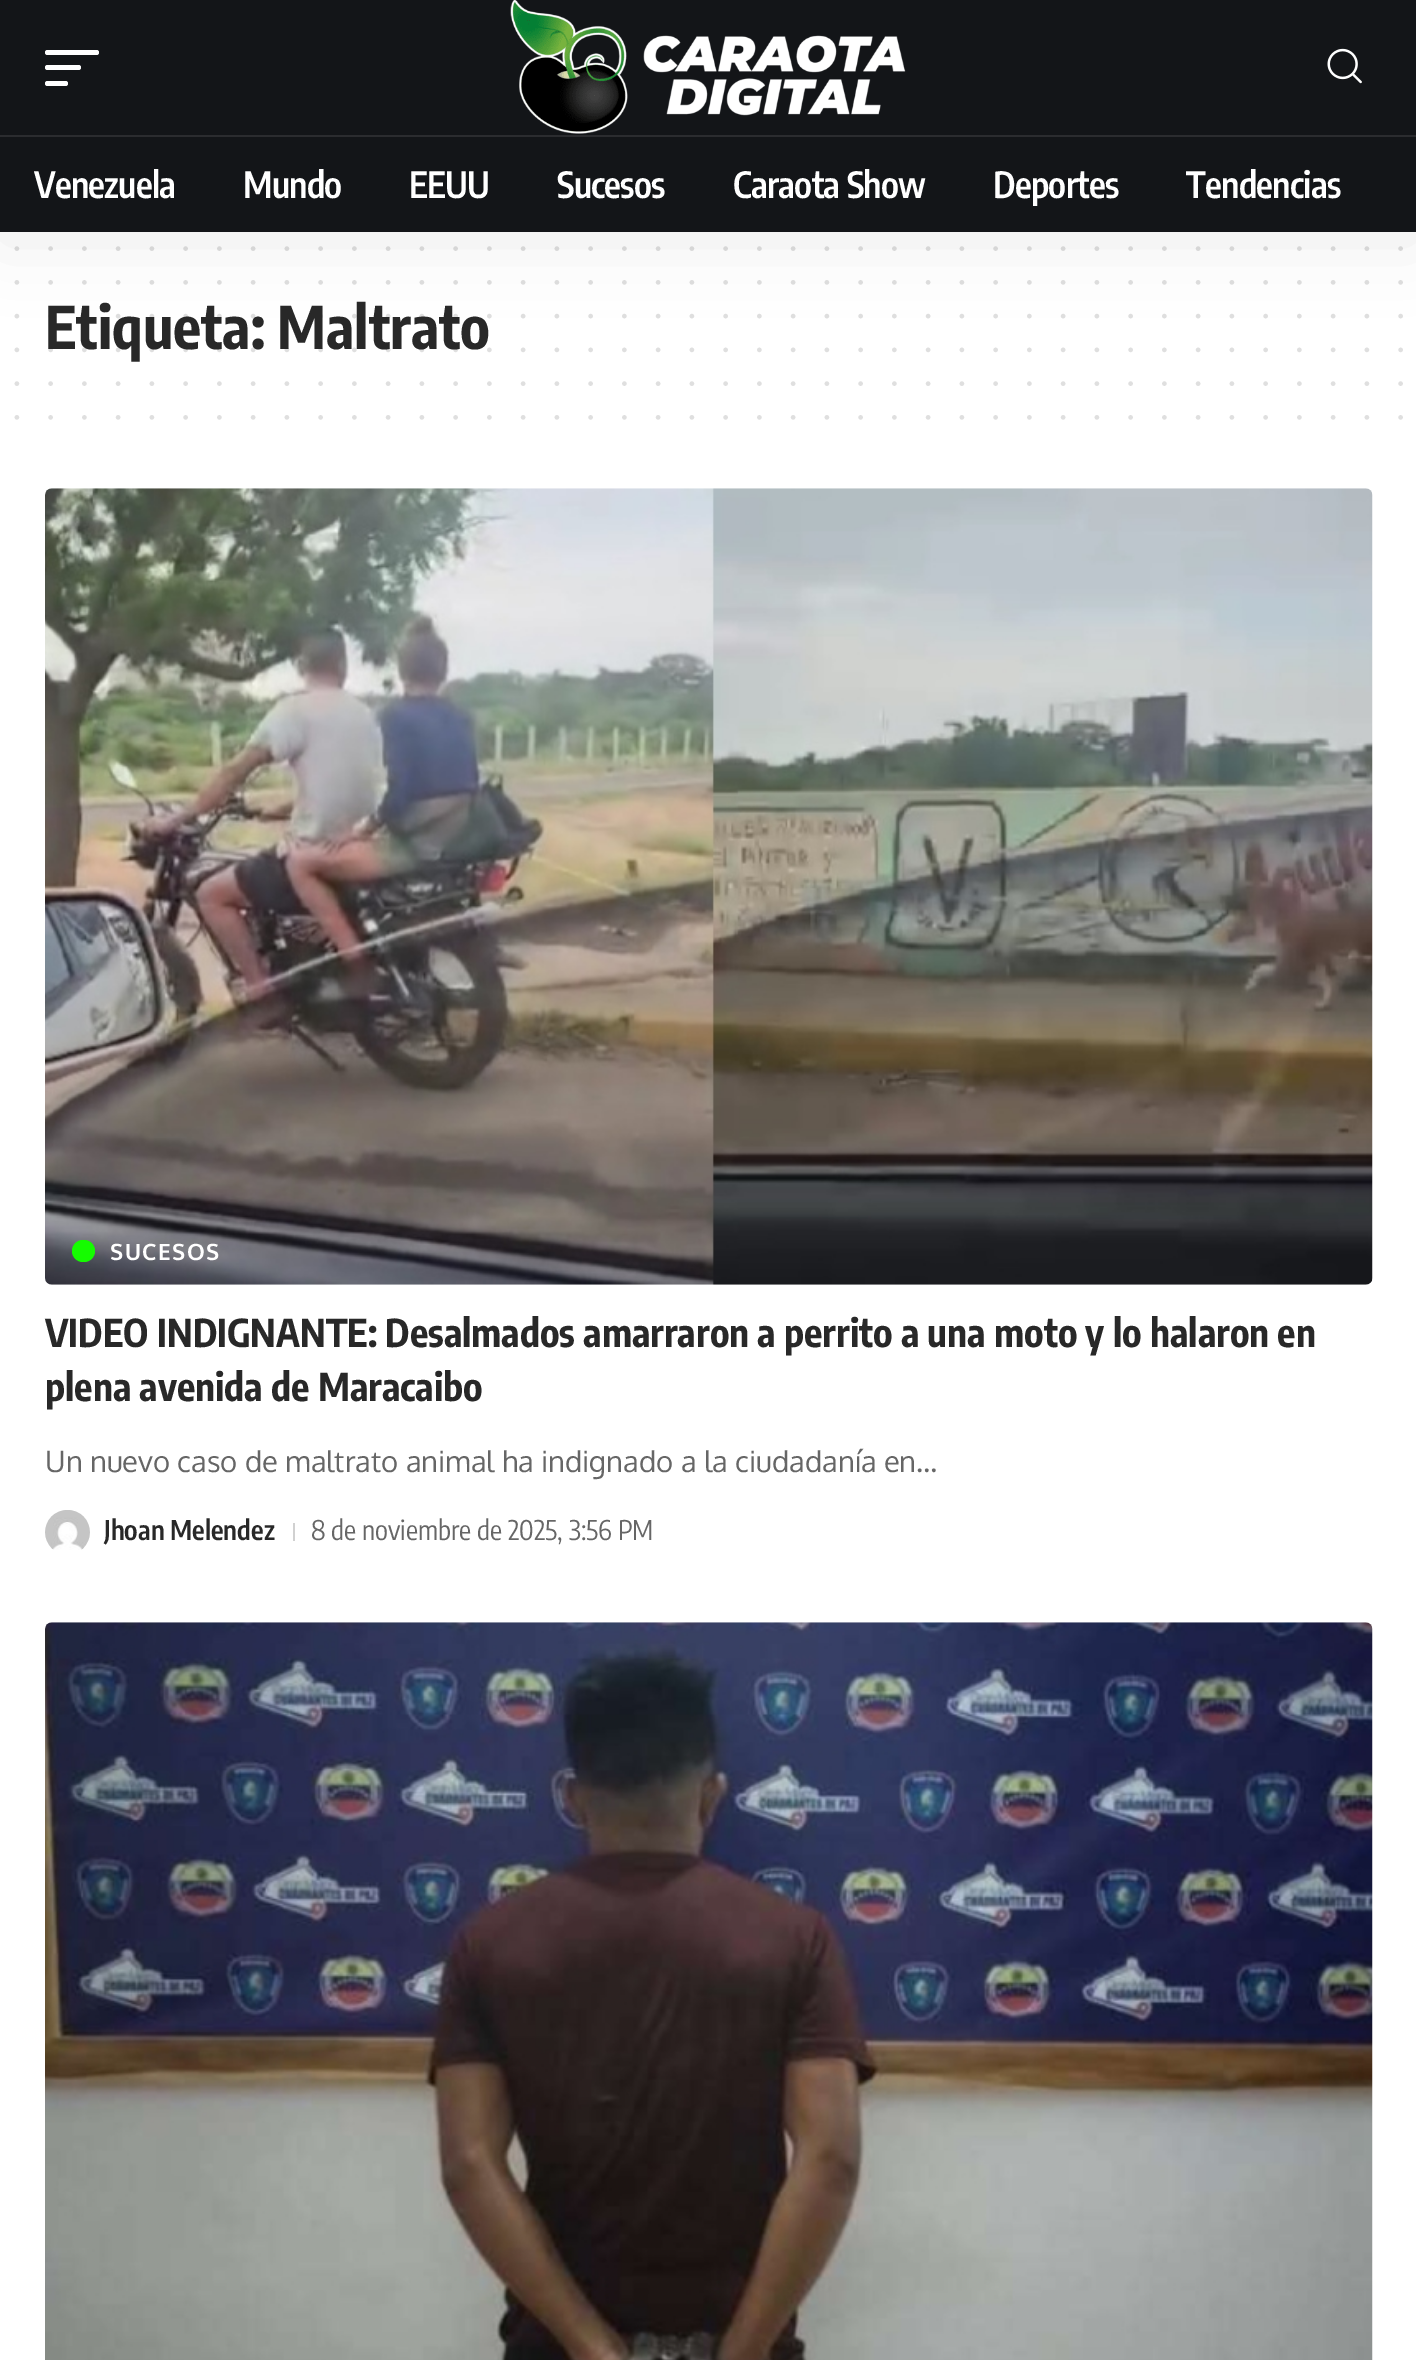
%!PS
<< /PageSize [1416 2360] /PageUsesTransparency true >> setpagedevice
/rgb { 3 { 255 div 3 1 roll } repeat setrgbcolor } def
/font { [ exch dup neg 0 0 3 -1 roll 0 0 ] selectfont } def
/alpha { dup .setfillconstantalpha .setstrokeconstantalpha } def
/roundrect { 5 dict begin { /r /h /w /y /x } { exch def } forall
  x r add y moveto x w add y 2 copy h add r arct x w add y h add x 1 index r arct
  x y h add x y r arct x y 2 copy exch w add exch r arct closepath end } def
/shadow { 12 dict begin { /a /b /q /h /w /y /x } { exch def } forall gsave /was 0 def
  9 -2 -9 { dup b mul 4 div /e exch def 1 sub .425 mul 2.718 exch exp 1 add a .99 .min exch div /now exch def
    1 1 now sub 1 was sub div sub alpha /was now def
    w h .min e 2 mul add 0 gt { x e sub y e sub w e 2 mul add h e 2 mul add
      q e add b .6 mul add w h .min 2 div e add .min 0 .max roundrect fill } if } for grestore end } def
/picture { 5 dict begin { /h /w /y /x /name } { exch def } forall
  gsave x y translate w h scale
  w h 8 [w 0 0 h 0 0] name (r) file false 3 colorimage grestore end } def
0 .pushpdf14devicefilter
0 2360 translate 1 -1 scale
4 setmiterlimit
255 255 255 rgb
0 0 1416 2360 rectfill
223 223 223 rgb
4.5 setlinewidth
1 setlinecap
[0 33.75] 0 setdash
16.9 248.6 moveto 1401.1 248.6 lineto stroke
16.9 282.4 moveto 1401.1 282.4 lineto stroke
16.9 383.6 moveto 1401.1 383.6 lineto stroke
16.9 417.4 moveto 1401.1 417.4 lineto stroke
(img/3.rgb) 45 488 1328 797 picture
21 252 0 rgb
72 1240 23 22 11 roundrect fill
(img/4.rgb) 45 1510 45 40 picture
209 209 209 rgb
293 1523 2 18 rectfill
(img/5.rgb) 45 1622 1328 738 picture
/EncodeSansCondensed-Bold 58.5 font
40 40 40 rgb
45 349 moveto (Etiqueta: Maltrato) show
0.15 alpha
16.9 316.1 moveto 1401.1 316.1 lineto stroke
1 alpha
0 0 0 rgb
0 9 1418 232 0 34 0.07 shadow
19 21 24 rgb
0 0 1416 232 rectfill
/EncodeSansCondensed-SemiBold 36 font
255 255 255 rgb
1186 198 moveto -0.75 0 (Tendencias) ashow
993 198 moveto -0.75 0 (Deportes) ashow
733 198 moveto -0.75 0 (Caraota Show) ashow
557 198 moveto -0.75 0 (Sucesos) ashow
409 198 moveto -0.75 0 (EEUU) ashow
243 198 moveto -0.75 0 (Mundo) ashow
34 198 moveto -0.75 0 (Venezuela) ashow
43 44 47 rgb
0 135 1416 2 rectfill
(img/2.rgb) 1327 48 35 36 picture
255 255 255 rgb
45 81 23 5 2.5 roundrect fill
45 65 36 5 2.5 roundrect fill
45 50 54 5 2.5 roundrect fill
(img/1.rgb) 510 0 396 134 picture
0.15 alpha
40 40 40 rgb
16.9 349.9 moveto 1401.1 349.9 lineto stroke
/Oxygen-Bold 22.5 font
1 alpha
255 255 255 rgb
110 1260 moveto 1.5 0 (SUCESOS) ashow
/EncodeSansCondensed-Bold 38.25 font
40 40 40 rgb
45 1347 moveto (VIDEO INDIGNANTE: Desalmados amarraron a perrito a una moto y lo halaron en) show
45 1401 moveto (plena avenida de Maracaibo) show
/Oxygen-Regular 29.25 font
102 102 102 rgb
45 1472 moveto (Un nuevo caso de maltrato animal ha indignado a la ciudadanía en…) show
/EncodeSansCondensed-SemiBold 27 font
40 40 40 rgb
104 1540 moveto (Jhoan Melendez) show
/EncodeSansCondensed-Regular 27 font
102 102 102 rgb
311 1540 moveto (8 de noviembre de 2025, 3:56 PM) show
.poppdf14devicefilter showpage
